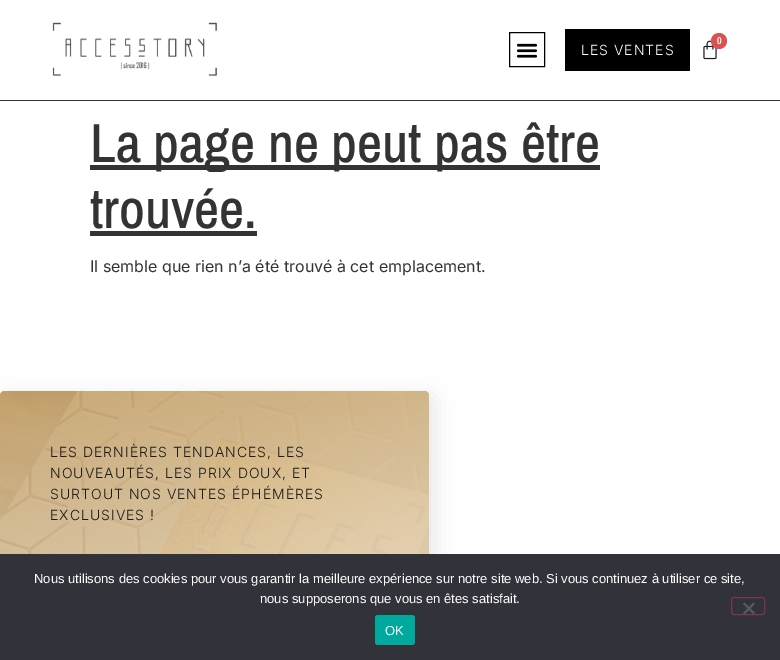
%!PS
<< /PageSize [780 660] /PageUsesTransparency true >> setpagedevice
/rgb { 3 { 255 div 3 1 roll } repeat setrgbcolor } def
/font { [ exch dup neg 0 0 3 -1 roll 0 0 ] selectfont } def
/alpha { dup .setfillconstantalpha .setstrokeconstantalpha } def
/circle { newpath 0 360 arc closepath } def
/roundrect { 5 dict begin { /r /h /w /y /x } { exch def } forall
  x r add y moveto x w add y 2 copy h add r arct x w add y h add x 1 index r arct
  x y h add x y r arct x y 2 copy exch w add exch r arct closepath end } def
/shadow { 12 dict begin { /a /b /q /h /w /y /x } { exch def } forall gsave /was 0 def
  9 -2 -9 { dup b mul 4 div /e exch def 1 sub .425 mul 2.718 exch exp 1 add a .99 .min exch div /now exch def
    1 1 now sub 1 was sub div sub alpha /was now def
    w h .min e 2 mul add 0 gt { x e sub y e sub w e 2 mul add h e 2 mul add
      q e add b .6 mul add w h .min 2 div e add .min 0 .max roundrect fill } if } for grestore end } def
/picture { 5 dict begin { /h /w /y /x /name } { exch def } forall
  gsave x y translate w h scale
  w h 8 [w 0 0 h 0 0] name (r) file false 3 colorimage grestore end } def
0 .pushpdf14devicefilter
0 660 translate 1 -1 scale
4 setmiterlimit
255 255 255 rgb
0 0 780 660 rectfill
51 51 51 rgb
0 100 780 1 rectfill
(img/1.rgb) 52 22 166 55 picture
0 0 0 rgb
509.5 32.5 35 34 rectstroke
(img/2.rgb) 516 43 22 15 picture
(img/3.rgb) 703 40 14 20 picture
217 83 79 rgb
719 41 8 circle fill
[
  [565 29 125 42 0 0 0]
  [90 165 510 5 51 51 51]
  [90 231 167 5 51 51 51]
] { aload pop rgb rectfill } forall
0 0 0 rgb
5 396 429 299 5 10 0.1 shadow
(img/4.rgb) 0 391 429 163 picture
0.9 alpha
gsave 0 391 429 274 5 roundrect clip newpath
<< /ShadingType 2 /ColorSpace /DeviceRGB /Coords [164 362 265 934] /Extend [true true] /Function << /FunctionType 2 /Domain [0 1] /C0 [0.8 0.663 0.439] /C1 [1 1 1] /N 1 >> >> shfill grestore
1 alpha
50 50 58 rgb
0 554 780 106 rectfill
127 51 80 rgb
731.5 597.5 33 17 2.5 roundrect stroke
89 89 93 rgb
753.5 602.5 moveto 755 604 lineto 744.5 614.5 lineto 743 613 lineto closepath fill
743 604 moveto 744.5 602.5 lineto 755 613 lineto 753.5 614.5 lineto closepath fill
0 169 157 rgb
375 615 40 30 3 roundrect fill
/ArchivoNarrow-SemiBold 10 font
255 255 255 rgb
717 44 moveto (0) show
/Inter-Light 14 font
581 55 moveto 1 0 (LES VENTES) ashow
/ArchivoNarrow-Medium 55 font
51 51 51 rgb
90 162 moveto (La page ne peut pas être) show
90 228 moveto (trouvée.) show
/Inter-Regular 16 font
90 272 moveto (Il semble que rien n’a été trouvé à cet emplacement.) show
/Inter-Light 14 font
27 27 27 rgb
50 457 moveto 1 0 (LES DERNIÈRES TENDANCES, LES) ashow
50 478 moveto 1 0 (NOUVEAUTÉS, LES PRIX DOUX, ET) ashow
50 499 moveto 1 0 (SURTOUT NOS VENTES ÉPHÉMÈRES) ashow
50 520 moveto 1 0 (EXCLUSIVES !) ashow
/LiberationSans-Regular 13 font
255 255 255 rgb
[
  [(Nous utilisons des cookies pour vous garantir la meilleure expérience sur notre site web. Si vous continuez à utiliser ce site,) 34 583]
  [(nous supposerons que vous en êtes satisfait.) 260 603]
  [(OK) 385 635]
] { aload pop moveto show } forall
.poppdf14devicefilter showpage
